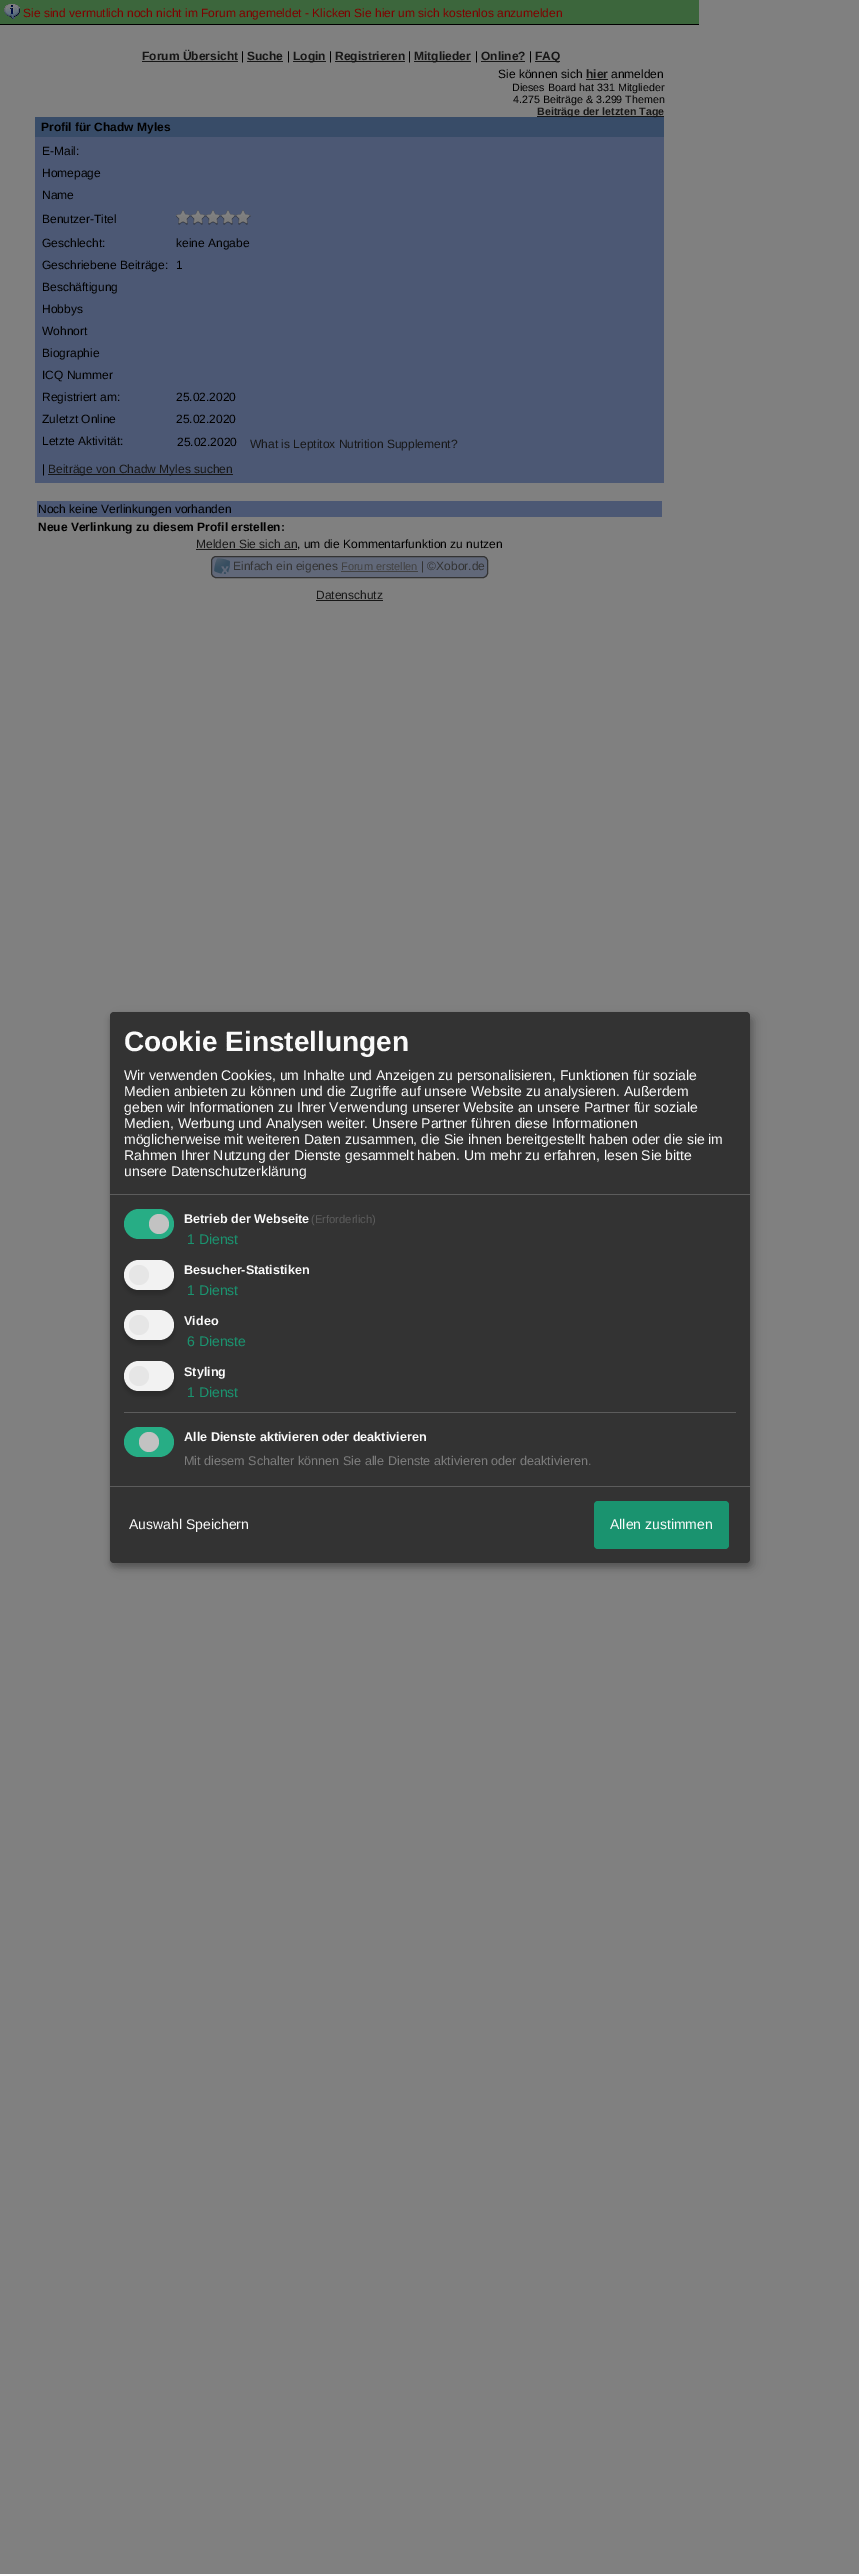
%!PS
<< /PageSize [859 2574] /PageUsesTransparency true >> setpagedevice
/rgb { 3 { 255 div 3 1 roll } repeat setrgbcolor } def
/font { [ exch dup neg 0 0 3 -1 roll 0 0 ] selectfont } def
/alpha { dup .setfillconstantalpha .setstrokeconstantalpha } def
/circle { newpath 0 360 arc closepath } def
/roundrect { 5 dict begin { /r /h /w /y /x } { exch def } forall
  x r add y moveto x w add y 2 copy h add r arct x w add y h add x 1 index r arct
  x y h add x y r arct x y 2 copy exch w add exch r arct closepath end } def
/shadow { 12 dict begin { /a /b /q /h /w /y /x } { exch def } forall gsave /was 0 def
  9 -2 -9 { dup b mul 4 div /e exch def 1 sub .425 mul 2.718 exch exp 1 add a .99 .min exch div /now exch def
    1 1 now sub 1 was sub div sub alpha /was now def
    w h .min e 2 mul add 0 gt { x e sub y e sub w e 2 mul add h e 2 mul add
      q e add b .6 mul add w h .min 2 div e add .min 0 .max roundrect fill } if } for grestore end } def
/picture { 5 dict begin { /h /w /y /x /name } { exch def } forall
  gsave x y translate w h scale
  w h 8 [w 0 0 h 0 0] name (r) file false 3 colorimage grestore end } def
0 .pushpdf14devicefilter
0 2574 translate 1 -1 scale
4 setmiterlimit
128 128 128 rgb
0 0 859 2574 rectfill
60 102 60 rgb
0 0 699 24 rectfill
0 0 0 rgb
0 24 699 1 rectfill
(img/1.rgb) 4 4 16 15 picture
[
  [142 61 96 1 23 23 23]
  [247 61 36 1 23 23 23]
  [293 61 33 1 23 23 23]
  [335 61 70 1 23 23 23]
  [414 61 57 1 23 23 23]
  [481 61 44 1 23 23 23]
  [535 61 25 1 23 23 23]
  [586 79 22 1 23 23 23]
  [537 116 127 1 23 23 23]
  [35 117 629 20 56 76 104]
  [35 137 629 346 76 88 116]
] { aload pop rgb rectfill } forall
(img/2.rgb) 176 210 75 15 picture
[
  [48 474 185 1 23 23 23]
  [37 501 625 16 76 88 116]
  [196 549 101 1 23 23 23]
] { aload pop rgb rectfill } forall
97 104 121 rgb
211.5 556.5 276 21 4.5 roundrect gsave fill grestore
51 51 51 rgb
stroke
(img/3.rgb) 214 558 16 16 picture
65 65 65 rgb
341 571 77 1 rectfill
23 23 23 rgb
316 600 67 1 rectfill
0 0 0 rgb
115 1017 640 551 4 5 0.19 shadow
110 1016 640 551 4 3 0.2 shadow
51 51 51 rgb
110 1012 640 551 4 roundrect fill
92 92 92 rgb
110 1194 640 1 rectfill
39 173 133 rgb
124 1209 50 30 15 roundrect fill
194 194 194 rgb
159 1224 10 circle fill
0 0 0 rgb
124 1264 50 30 15 3 0.2 shadow
242 242 242 rgb
124 1260 50 30 15 roundrect fill
230 230 230 rgb
139 1275 10 circle fill
0 0 0 rgb
124 1314 50 30 15 3 0.2 shadow
242 242 242 rgb
124 1310 50 30 15 roundrect fill
230 230 230 rgb
139 1325 10 circle fill
0 0 0 rgb
124 1365 50 30 15 3 0.2 shadow
242 242 242 rgb
124 1361 50 30 15 roundrect fill
230 230 230 rgb
139 1376 10 circle fill
92 92 92 rgb
124 1412 612 1 rectfill
39 173 133 rgb
124 1427 50 30 15 roundrect fill
194 194 194 rgb
149 1442 10 circle fill
92 92 92 rgb
110 1486 640 1 rectfill
26 147 111 rgb
594 1501 135 48 4 roundrect fill
/LiberationSans-Regular 12 font
128 0 0 rgb
23 17 moveto (Sie sind vermutlich noch nicht im Forum angemeldet - Klicken Sie hier um sich kostenlos anzumelden) show
/LiberationSans-Bold 12 font
23 23 23 rgb
142 60 moveto (Forum Übersicht) show
/LiberationSans-Regular 12 font
0 0 0 rgb
241 60 moveto (|) show
/LiberationSans-Bold 12 font
23 23 23 rgb
247 60 moveto (Suche) show
/LiberationSans-Regular 12 font
0 0 0 rgb
287 60 moveto (|) show
/LiberationSans-Bold 12 font
23 23 23 rgb
293 60 moveto (Login) show
/LiberationSans-Regular 12 font
0 0 0 rgb
329 60 moveto (|) show
/LiberationSans-Bold 12 font
23 23 23 rgb
335 60 moveto (Registrieren) show
/LiberationSans-Regular 12 font
0 0 0 rgb
408 60 moveto (|) show
/LiberationSans-Bold 12 font
23 23 23 rgb
414 60 moveto (Mitglieder) show
/LiberationSans-Regular 12 font
0 0 0 rgb
475 60 moveto (|) show
/LiberationSans-Bold 12 font
23 23 23 rgb
481 60 moveto (Online?) show
/LiberationSans-Regular 12 font
0 0 0 rgb
529 60 moveto (|) show
/LiberationSans-Bold 12 font
23 23 23 rgb
535 60 moveto (FAQ) show
/LiberationSans-Regular 12 font
0 0 0 rgb
498 78 moveto (Sie können sich) show
/LiberationSans-Bold 12 font
23 23 23 rgb
586 78 moveto (hier) show
/LiberationSans-Regular 12 font
0 0 0 rgb
611 78 moveto (anmelden) show
/LiberationSans-Regular 10.7 font
512 91 moveto (Dieses Board hat 331 Mitglieder) show
513 103 moveto (4.275 Beiträge & 3.299 Themen) show
/LiberationSans-Bold 10.7 font
23 23 23 rgb
537 115 moveto (Beiträge der letzten Tage) show
/LiberationSans-Bold 12 font
0 0 0 rgb
41 131 moveto (Profil für Chadw Myles) show
/LiberationSans-Regular 12 font
[
  [(E-Mail:) 42 155]
  [(Homepage) 42 177]
  [(Name) 42 199]
  [(Benutzer-Titel) 42 223]
  [(Geschlecht:) 42 247]
  [(keine Angabe) 176 247]
  [(Geschriebene Beiträge:) 42 269]
  [(1) 176 269]
  [(Beschäftigung) 42 291]
  [(Hobbys) 42 313]
  [(Wohnort) 42 335]
  [(Biographie) 42 357]
  [(ICQ Nummer) 42 379]
  [(Registriert am:) 42 401]
  [(25.02.2020) 176 401]
  [(Zuletzt Online) 42 423]
  [(25.02.2020) 176 423]
  [(Letzte Aktivität:) 42 445]
  [(25.02.2020) 177 446]
] { aload pop moveto show } forall
23 23 23 rgb
250 448 moveto (What is Leptitox Nutrition Supplement?) show
0 0 0 rgb
42 473 moveto (|) show
23 23 23 rgb
48 473 moveto (Beiträge von Chadw Myles suchen) show
0 0 0 rgb
38 513 moveto (Noch keine Verlinkungen vorhanden) show
/LiberationSans-Bold 12 font
38 531 moveto (Neue Verlinkung zu diesem Profil erstellen:) show
/LiberationSans-Regular 12 font
23 23 23 rgb
196 548 moveto (Melden Sie sich an) show
0 0 0 rgb
297 548 moveto (, um die Kommentarfunktion zu nutzen) show
51 51 51 rgb
233 570 moveto (Einfach ein eigenes) show
/LiberationSans-Regular 11 font
65 65 65 rgb
341 570 moveto (Forum erstellen) show
/LiberationSans-Regular 12 font
51 51 51 rgb
421 570 moveto (| ©Xobor.de) show
23 23 23 rgb
316 599 moveto (Datenschutz) show
/LiberationSans-Bold 28 font
250 250 250 rgb
124 1051 moveto (Cookie Einstellungen) show
/LiberationSans-Regular 14 font
[
  [(Wir verwenden Cookies, um Inhalte und Anzeigen zu personalisieren, Funktionen für soziale) 124 1080]
  [(Medien anbieten zu können und die Zugriffe auf unsere Website zu analysieren. Außerdem) 124 1096]
  [(geben wir Informationen zu Ihrer Verwendung unserer Website an unsere Partner für soziale) 124 1112]
  [(Medien, Werbung und Analysen weiter. Unsere Partner führen diese Informationen) 124 1128]
  [(möglicherweise mit weiteren Daten zusammen, die Sie ihnen bereitgestellt haben oder die sie im) 124 1144]
  [(Rahmen Ihrer Nutzung der Dienste gesammelt haben. Um mehr zu erfahren, lesen Sie bitte) 124 1160]
  [(unsere Datenschutzerklärung) 124 1176]
] { aload pop moveto show } forall
/LiberationSans-Bold 12.6 font
184 1223 moveto (Betrieb der Webseite) show
/LiberationSans-Regular 11.25 font
92 92 92 rgb
311 1223 moveto (\(Erforderlich\)) show
/LiberationSans-Regular 14 font
26 147 111 rgb
187 1244 moveto (1 Dienst) show
/LiberationSans-Bold 12.6 font
250 250 250 rgb
184 1274 moveto (Besucher-Statistiken) show
/LiberationSans-Regular 14 font
26 147 111 rgb
187 1295 moveto (1 Dienst) show
/LiberationSans-Bold 12.6 font
250 250 250 rgb
184 1325 moveto (Video) show
/LiberationSans-Regular 14 font
26 147 111 rgb
187 1346 moveto (6 Dienste) show
/LiberationSans-Bold 12.6 font
250 250 250 rgb
184 1376 moveto (Styling) show
/LiberationSans-Regular 14 font
26 147 111 rgb
187 1397 moveto (1 Dienst) show
/LiberationSans-Bold 12.6 font
250 250 250 rgb
184 1441 moveto (Alle Dienste aktivieren oder deaktivieren) show
/LiberationSans-Regular 12.6 font
124 124 124 rgb
184 1465 moveto (Mit diesem Schalter können Sie alle Dienste aktivieren oder deaktivieren.) show
/LiberationSans-Regular 14 font
250 250 250 rgb
129 1529 moveto (Auswahl Speichern) show
610 1529 moveto (Allen zustimmen) show
.poppdf14devicefilter showpage
